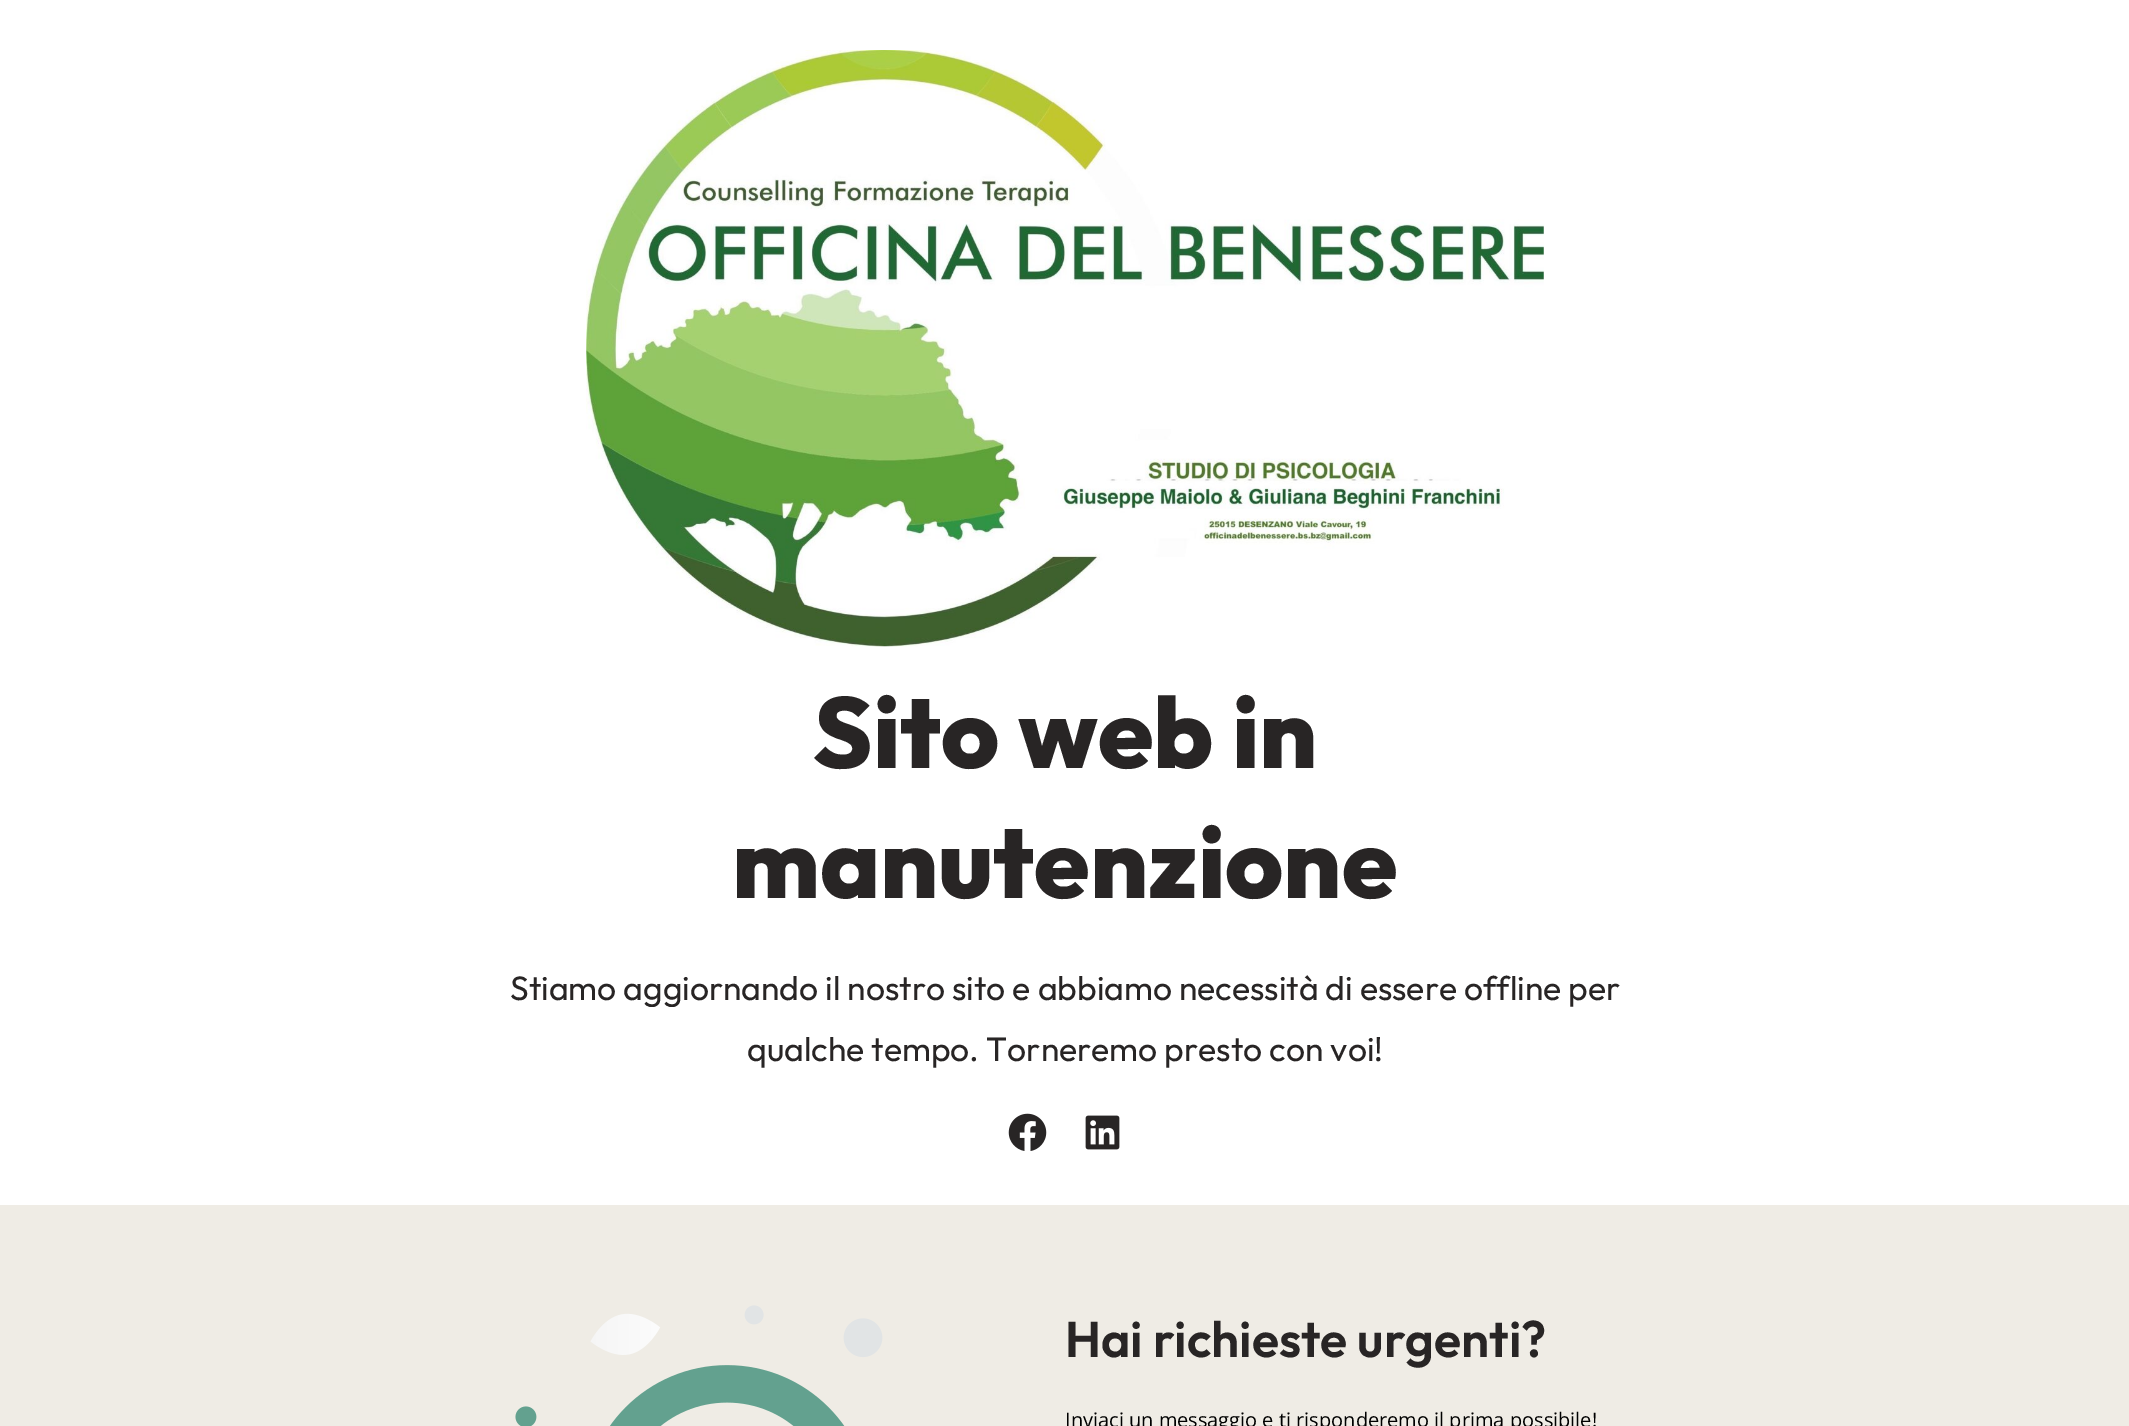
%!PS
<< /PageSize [2129 1426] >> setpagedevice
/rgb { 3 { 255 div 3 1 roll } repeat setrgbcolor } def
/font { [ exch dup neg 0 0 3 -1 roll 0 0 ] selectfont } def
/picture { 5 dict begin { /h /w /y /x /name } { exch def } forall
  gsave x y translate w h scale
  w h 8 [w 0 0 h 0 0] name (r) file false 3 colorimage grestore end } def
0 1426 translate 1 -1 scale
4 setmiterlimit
255 255 255 rgb
0 0 2129 1426 rectfill
(img/1.rgb) 586 50 958 597 picture
(img/2.rgb) 1008 1113 39 38 picture
(img/3.rgb) 1085 1115 35 35 picture
239 236 229 rgb
0 1205 2129 221 rectfill
(img/4.rgb) 515 1305 368 121 picture
/Outfit-ExtraBold 100 font
40 37 37 rgb
813 768 moveto (Sito web in) show
732 898 moveto (manutenzione) show
/Outfit-Regular 33.75 font
510 1000 moveto (Stiamo aggiornando il nostro sito e abbiamo necessità di essere offline per) show
747 1061 moveto (qualche tempo. Torneremo presto con voi!) show
/Outfit-SemiBold 50 font
1065 1357 moveto (Hai richieste urgenti?) show
/OpenSans-Regular 20 font
0 0 0 rgb
1065 1427 moveto (Inviaci un messaggio e ti risponderemo il prima possibile!) show
showpage
